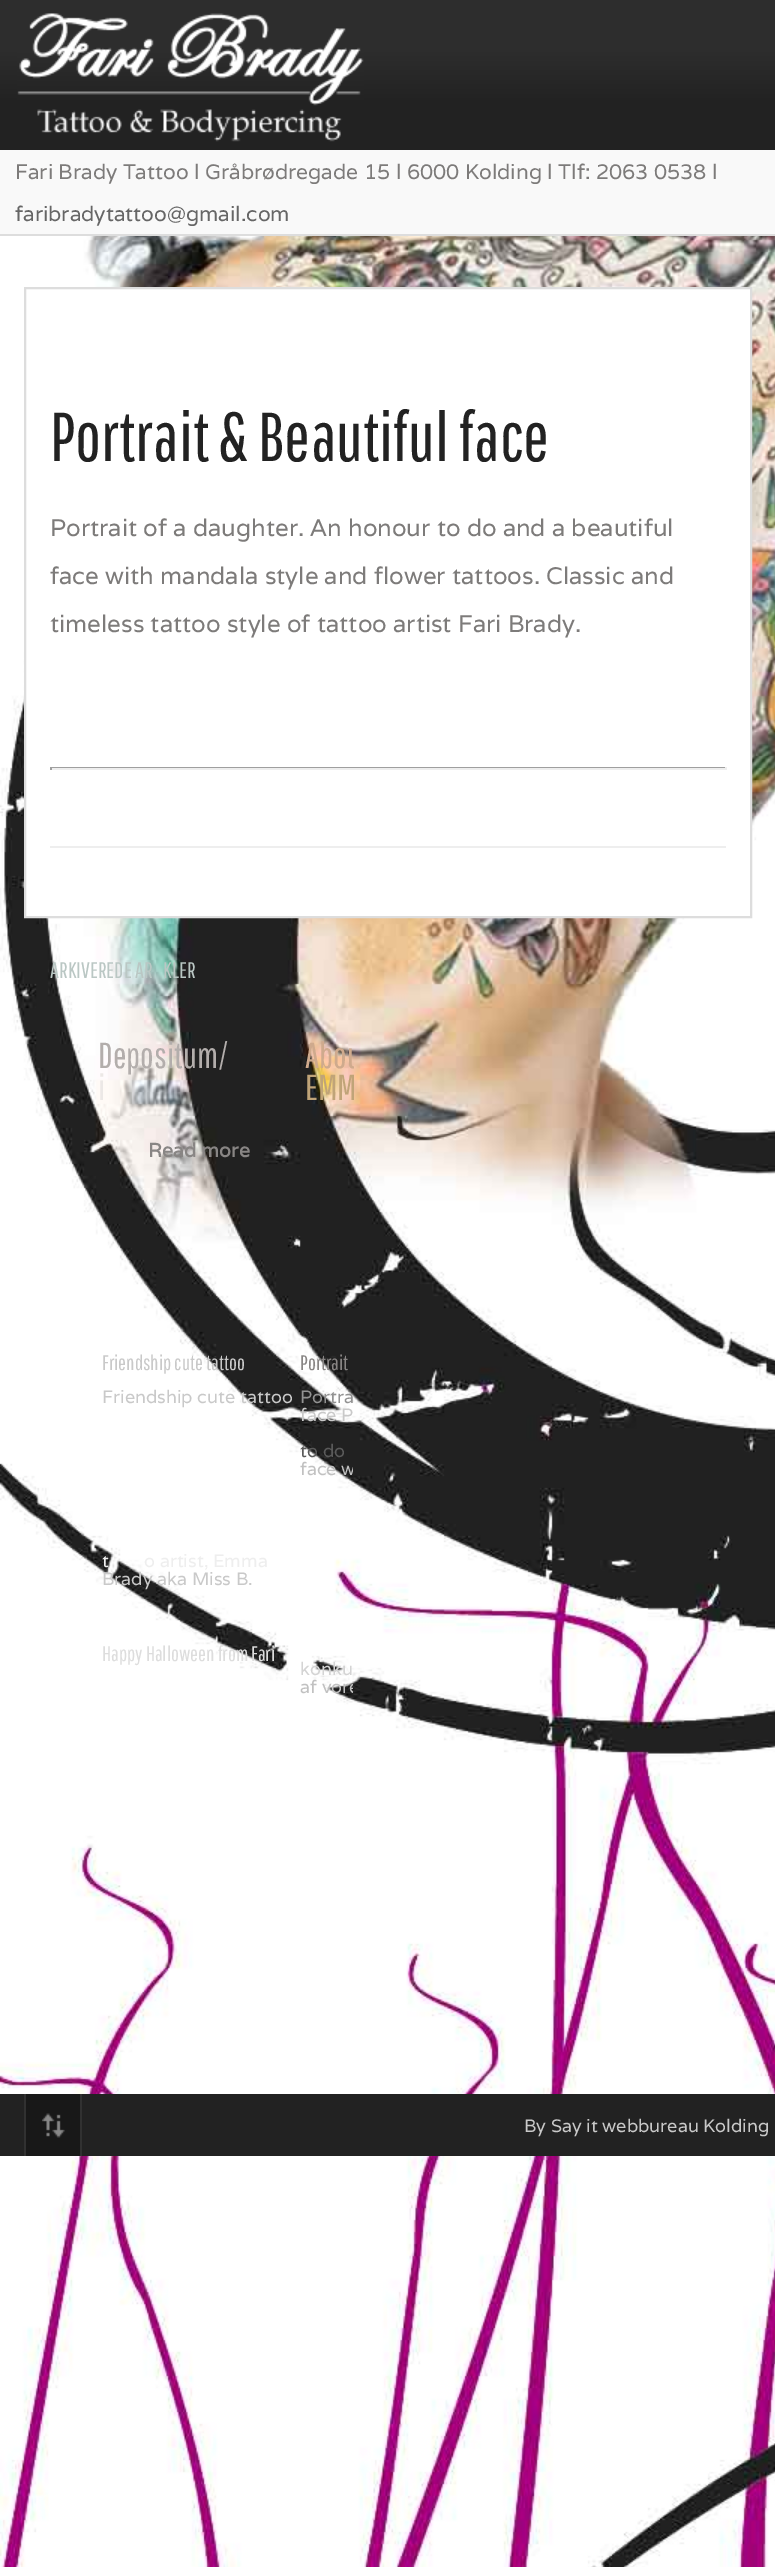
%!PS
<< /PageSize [775 2567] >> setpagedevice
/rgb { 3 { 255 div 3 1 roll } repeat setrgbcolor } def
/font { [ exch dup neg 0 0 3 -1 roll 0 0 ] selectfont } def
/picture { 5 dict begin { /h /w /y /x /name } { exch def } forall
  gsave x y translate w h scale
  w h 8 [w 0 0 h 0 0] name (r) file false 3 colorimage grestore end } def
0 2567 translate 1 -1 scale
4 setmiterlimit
255 255 255 rgb
0 0 775 2567 rectfill
(img/1.rgb) 0 236 775 2331 picture
gsave 0 0 moveto 775 0 lineto 775 150 lineto 0 150 lineto closepath clip newpath
<< /ShadingType 2 /ColorSpace /DeviceRGB /Coords [388 150 388 0] /Extend [true true] /Function << /FunctionType 3 /Domain [0 1] /Functions [<< /FunctionType 2 /Domain [0 1] /C0 [0.133 0.133 0.133] /C1 [0.133 0.133 0.133] /N 1 >> << /FunctionType 2 /Domain [0 1] /C0 [0.133 0.133 0.133] /C1 [0.176 0.176 0.176] /N 1 >> << /FunctionType 2 /Domain [0 1] /C0 [0.176 0.176 0.176] /C1 [0.176 0.176 0.176] /N 1 >>] /Bounds [0.32 0.66] /Encode [0 1 0 1 0 1] >> >> shfill grestore
(img/2.rgb) 17 13 347 129 picture
249 249 249 rgb
0 150 775 84 rectfill
221 221 221 rgb
0 234 775 2 rectfill
255 255 255 rgb
25 288 moveto 751 288 lineto 751 917 lineto 25 917 lineto closepath gsave fill grestore
221 221 221 rgb
2 setlinewidth
stroke
[
  [50 767 676 1 159 159 159]
  [725 767 2 3 238 238 238]
  [50 768 676 2 238 238 238]
  [50 767 2 3 159 159 159]
  [50 846 676 2 238 238 238]
  [0 2094 775 62 34 34 34]
  [26 2094 54 62 24 24 24]
] { aload pop rgb rectfill } forall
(img/3.rgb) 42 2113 23 25 picture
49 49 49 rgb
80 2094 2 62 rectfill
24 2094 2 62 rectfill
/Varela-Regular 21 font
125 123 122 rgb
15 179 moveto (Fari Brady Tattoo l Gråbrødregade 15 l 6000 Kolding l Tlf: 2063 0538 l) show
102 102 102 rgb
15 221 moveto (faribradytattoo@gmail.com) show
/PathwayGothicOne-Regular 69 font
34 34 34 rgb
50 461 moveto (Portrait & Beautiful face) show
/Varela-Regular 24 font
125 123 122 rgb
[
  [(Portrait of a daughter. An honour to do and a beautiful) 50 536]
  [(face with mandala style and flower tattoos. Classic and) 50 584]
  [(timeless tattoo style of tattoo artist Fari Brady.) 50 632]
] { aload pop moveto show } forall
/PathwayGothicOne-Regular 22.5 font
186 199 196 rgb
50 978 moveto (ARKIVEREDE AR) show
163 978 moveto (KLER) show
/PathwayGothicOne-Regular 36 font
179 174 172 rgb
98 1068 moveto (Depositum/) show
236 232 230 rgb
98 1100 moveto (i) show
/Varela-Bold 19.5 font
136 133 132 rgb
148 1157 moveto (Read more) show
gsave
50 1025 304 292 rectclip
/PathwayGothicOne-Regular 36 font
207 170 141 rgb
305 1068 moveto (Abou) show
192 164 120 rgb
305 1100 moveto (EMM) show
grestore
/PathwayGothicOne-Regular 21 font
201 201 201 rgb
102 1370 moveto (Friendship cute tattoo) show
/Varela-Regular 18 font
102 1403 moveto (Friendship cute tattoo) show
238 238 238 rgb
102 1567 moveto (t) show
144 1567 moveto (o artist, Emma) show
201 201 201 rgb
102 1585 moveto (Brady aka Miss B.) show
/PathwayGothicOne-Regular 21 font
221 221 221 rgb
102 1661 moveto (Happy Halloween from Fari) show
136 133 132 rgb
300 1370 moveto (Portrait) show
/Varela-Regular 18 font
146 146 146 rgb
300 1403 moveto (Portra) show
201 201 201 rgb
300 1421 moveto (face P) show
90 90 90 rgb
300 1457 moveto (to do) show
gsave
50 1317 303 743 rectclip
193 193 193 rgb
300 1475 moveto (face w) show
grestore
212 212 212 rgb
300 1675 moveto (konku) show
gsave
50 1317 303 743 rectclip
193 193 193 rgb
300 1693 moveto (af vore) show
grestore
201 201 201 rgb
524 2132 moveto (By Say it webbureau Kolding) show
showpage
